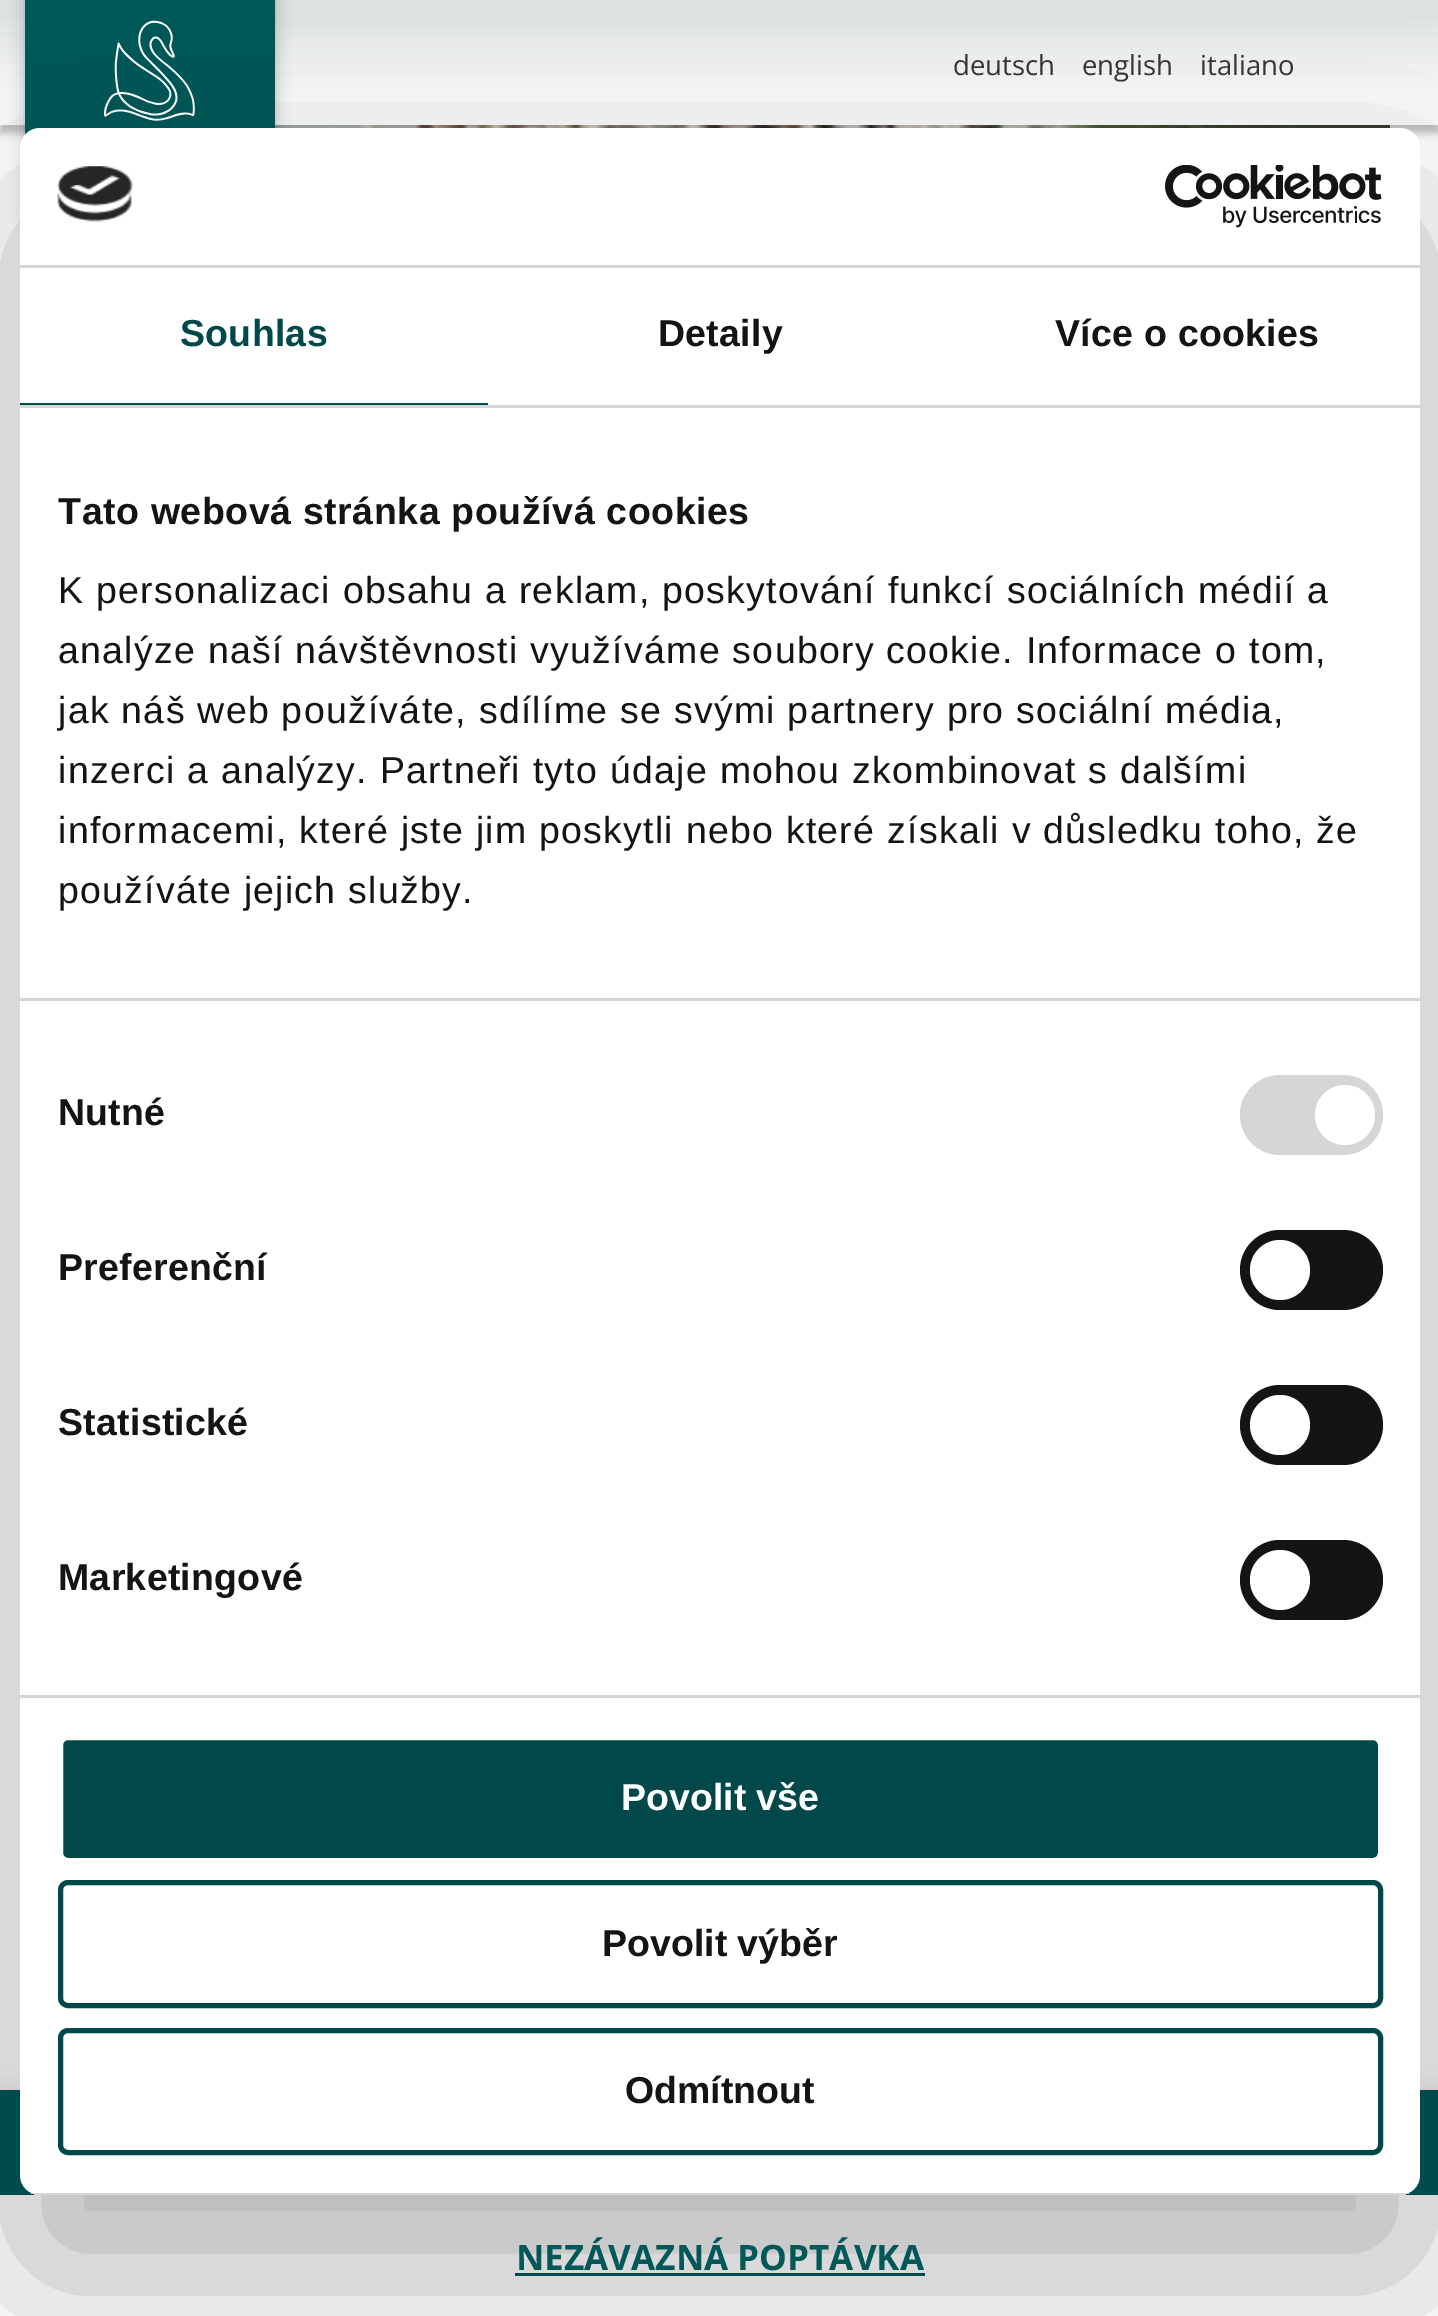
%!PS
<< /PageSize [1438 2316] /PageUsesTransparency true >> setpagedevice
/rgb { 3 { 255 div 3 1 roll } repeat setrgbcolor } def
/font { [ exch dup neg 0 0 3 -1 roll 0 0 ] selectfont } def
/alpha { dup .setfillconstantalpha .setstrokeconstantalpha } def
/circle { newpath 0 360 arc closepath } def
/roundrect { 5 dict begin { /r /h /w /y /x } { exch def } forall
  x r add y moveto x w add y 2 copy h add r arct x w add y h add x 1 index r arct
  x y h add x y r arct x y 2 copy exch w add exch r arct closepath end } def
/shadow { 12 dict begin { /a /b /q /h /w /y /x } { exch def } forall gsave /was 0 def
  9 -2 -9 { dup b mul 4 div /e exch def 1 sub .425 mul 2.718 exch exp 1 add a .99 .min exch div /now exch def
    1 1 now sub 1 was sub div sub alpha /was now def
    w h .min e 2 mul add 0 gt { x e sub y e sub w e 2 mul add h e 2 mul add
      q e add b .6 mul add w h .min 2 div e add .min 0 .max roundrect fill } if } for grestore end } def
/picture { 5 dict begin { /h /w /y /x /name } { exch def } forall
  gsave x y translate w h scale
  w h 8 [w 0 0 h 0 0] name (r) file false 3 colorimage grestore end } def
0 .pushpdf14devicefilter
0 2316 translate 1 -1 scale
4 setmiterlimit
255 255 255 rgb
0 0 1438 2316 rectfill
(img/5.rgb) 275 125 1115 3 picture
0 0 0 rgb
0 8 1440 125 0 4 0.25 shadow
(img/1.rgb) 0 0 1438 125 picture
25 -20 250 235 0 7.5 0.25 shadow
0 88 88 rgb
25 0 250 135 rectfill
(img/2.rgb) 49 20 200 108 picture
0 0 0 rgb
0 2098 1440 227 0 12.5 0.2 shadow
[
  [0 2195 1438 121 255 255 255]
  [0 2090 1438 105 0 88 88]
  [515 2273 410 3 0 88 88]
] { aload pop rgb rectfill } forall
gsave
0 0 moveto 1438 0 lineto 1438 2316 lineto 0 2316 lineto closepath 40 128 moveto 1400 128 lineto 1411 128 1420 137 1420 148 curveto 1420 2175 lineto 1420 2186 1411 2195 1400 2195 curveto 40 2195 lineto 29 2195 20 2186 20 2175 curveto 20 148 lineto 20 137 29 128 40 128 curveto closepath eoclip newpath
0 0 0 rgb
20 208 1400 2067 20 85 0.3 shadow
grestore
255 255 255 rgb
20 128 1400 2067 20 roundrect fill
214 214 214 rgb
20 265 1400 3 rectfill
(img/3.rgb) 57 166 76 56 picture
(img/4.rgb) 1165 165 217 63 picture
[
  [20 405 1400 3 214 214 214]
  [20 403 468 2 0 72 73]
  [20 998 1400 3 214 214 214]
  [20 1695 1400 3 214 214 214]
] { aload pop rgb rectfill } forall
1240 1075 143 80 40 roundrect fill
255 255 255 rgb
1345 1115 30 circle fill
20 20 20 rgb
1240 1230 143 80 40 roundrect fill
255 255 255 rgb
1280 1270 30 circle fill
20 20 20 rgb
1240 1385 143 80 40 roundrect fill
255 255 255 rgb
1280 1425 30 circle fill
20 20 20 rgb
1240 1540 143 80 40 roundrect fill
255 255 255 rgb
1280 1580 30 circle fill
gsave
20 128 1400 2067 20 roundrect clip newpath
214 214 214 rgb
31 2193 1378 2 rectfill
grestore
0 72 73 rgb
60.5 1737.5 1320 123 7.5 roundrect gsave fill grestore
255 255 255 rgb
5 setlinewidth
stroke
0 72 73 rgb
60.5 1882.5 1320 123 7.5 roundrect stroke
60.5 2030.5 1320 122 7.5 roundrect stroke
/OpenSans-Regular 27.5 font
53 53 53 rgb
[
  [(deutsch) 953 75]
  [(english) 1082 75]
  [(italiano) 1200 75]
] { aload pop moveto show } forall
/LiberationSans-Bold 37.5 font
0 72 73 rgb
180 346 moveto 0.25 0 (Souhlas) ashow
20 20 20 rgb
658 346 moveto 0.25 0 (Detaily) ashow
1055 346 moveto 0.25 0 (Více o cookies) ashow
58 524 moveto 0.6 0 (Tato webová stránka používá cookies) ashow
/LiberationSans-Regular 37.5 font
58 603 moveto 1.25 0 (K personalizaci obsahu a reklam, poskytování funkcí sociálních médií a) ashow
58 663 moveto 1.25 0 (analýze naší návštěvnosti využíváme soubory cookie. Informace o tom,) ashow
58 723 moveto 1.25 0 (jak náš web používáte, sdílíme se svými partnery pro sociální média,) ashow
58 783 moveto 1.25 0 (inzerci a analýzy. Partneři tyto údaje mohou zkombinovat s dalšími) ashow
58 843 moveto 1.25 0 (informacemi, které jste jim poskytli nebo které získali v důsledku toho, že) ashow
58 903 moveto 1.25 0 (používáte jejich služby.) ashow
/LiberationSans-Bold 37.5 font
58 1125 moveto 0.25 0 (Nutné) ashow
58 1280 moveto 0.25 0 (Preferenční) ashow
58 1435 moveto 0.25 0 (Statistické) ashow
58 1590 moveto 0.25 0 (Marketingové) ashow
255 255 255 rgb
621 1810 moveto (Povolit vše) show
20 20 20 rgb
602 1956 moveto (Povolit výběr) show
625 2103 moveto (Odmítnout) show
/OpenSans-Bold 35 font
0 88 88 rgb
516 2270 moveto (NEZÁVAZNÁ POPTÁVKA) show
.poppdf14devicefilter showpage
